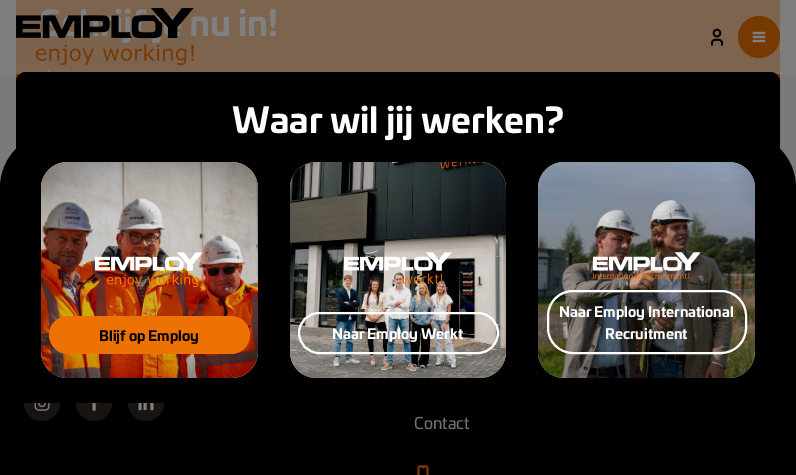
%!PS
<< /PageSize [796 475] /PageUsesTransparency true >> setpagedevice
/rgb { 3 { 255 div 3 1 roll } repeat setrgbcolor } def
/font { [ exch dup neg 0 0 3 -1 roll 0 0 ] selectfont } def
/alpha { dup .setfillconstantalpha .setstrokeconstantalpha } def
/circle { newpath 0 360 arc closepath } def
/roundrect { 5 dict begin { /r /h /w /y /x } { exch def } forall
  x r add y moveto x w add y 2 copy h add r arct x w add y h add x 1 index r arct
  x y h add x y r arct x y 2 copy exch w add exch r arct closepath end } def
/picture { 5 dict begin { /h /w /y /x /name } { exch def } forall
  gsave x y translate w h scale
  w h 8 [w 0 0 h 0 0] name (r) file false 3 colorimage grestore end } def
0 .pushpdf14devicefilter
0 475 translate 1 -1 scale
4 setmiterlimit
124 122 121 rgb
0 0 796 475 rectfill
119 57 2 rgb
16 0 764 82 rectfill
(img/4.rgb) 47 69 4 3 picture
0 0 0 rgb
56 132 moveto 740 132 lineto 771 132 796 157 796 188 curveto 796 262 lineto 0 262 lineto 0 188 lineto 0 157 25 132 56 132 curveto closepath fill
0 262 796 213 rectfill
23 20 18 rgb
42 403 18 circle fill
(img/11.rgb) 34 403 16 8 picture
94 403 18 circle fill
(img/12.rgb) 90 403 8 8 picture
146 403 18 circle fill
(img/13.rgb) 138 403 16 8 picture
(img/14.rgb) 417 465 12 10 picture
/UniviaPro-Bold 34.4 font
128 128 128 rgb
189 36 moveto (nu in!) show
0.6 alpha
0 0 796 74 rectfill
1 alpha
(img/1.rgb) 16 8 178 58 picture
119 57 2 rgb
759 37 21 circle fill
(img/3.rgb) 752 31 14 12 picture
(img/2.rgb) 710 28 14 18 picture
0 0 0 rgb
16 72 764 331 10 roundrect fill
0.2 alpha
16.5 72.5 763 330 9.5 roundrect stroke
1 alpha
255 255 255 rgb
232 133 moveto (Waar wil jij werken?) show
210 202 196 rgb
41 162 217 216 26 roundrect fill
(img/5.rgb) 41 162 217 216 picture
0.1 alpha
0 0 0 rgb
41 162 217 216 26 roundrect fill
1 alpha
(img/6.rgb) 95 252 108 36 picture
238 114 3 rgb
49 316 201 38 19 roundrect fill
/UniviaPro-Bold 14 font
0 0 0 rgb
99 341 moveto (Blijf op Employ) show
210 202 196 rgb
290 162 216 216 26 roundrect fill
(img/7.rgb) 290 162 216 216 picture
0.1 alpha
0 0 0 rgb
290 162 216 216 26 roundrect fill
1 alpha
(img/8.rgb) 344 252 108 33 picture
255 255 255 rgb
2 setlinewidth
299 313 199 40 20 roundrect stroke
332 339 moveto (Naar Employ Werkt) show
210 202 196 rgb
538 162 217 216 26 roundrect fill
(img/9.rgb) 538 162 217 216 picture
0.1 alpha
0 0 0 rgb
538 162 217 216 26 roundrect fill
1 alpha
(img/10.rgb) 593 252 108 27 picture
255 255 255 rgb
548 291 198 62 25 roundrect stroke
559 317 moveto (Naar Employ International) show
605 339 moveto (Recruitment) show
/UniviaPro-Regular 16 font
115 111 108 rgb
414 429 moveto (Contact) show
.poppdf14devicefilter showpage
